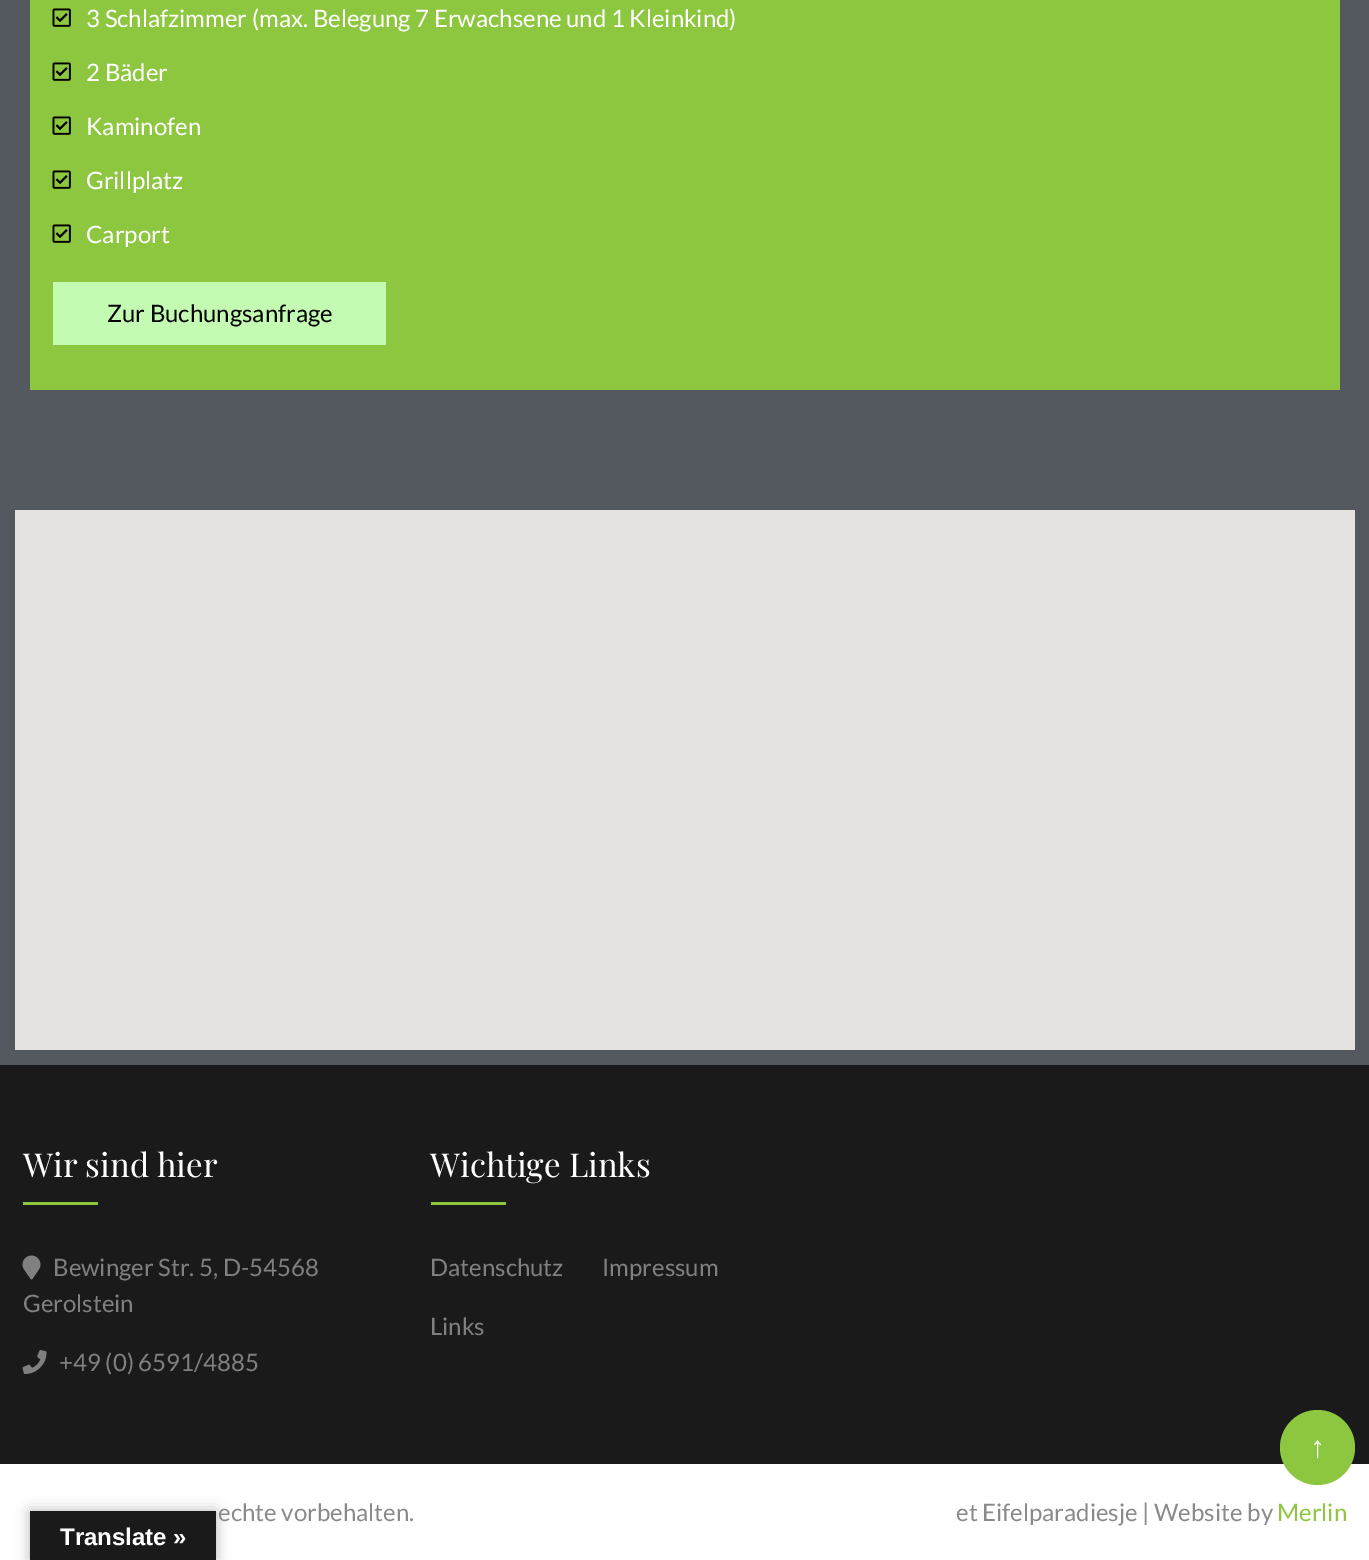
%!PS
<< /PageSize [1369 1560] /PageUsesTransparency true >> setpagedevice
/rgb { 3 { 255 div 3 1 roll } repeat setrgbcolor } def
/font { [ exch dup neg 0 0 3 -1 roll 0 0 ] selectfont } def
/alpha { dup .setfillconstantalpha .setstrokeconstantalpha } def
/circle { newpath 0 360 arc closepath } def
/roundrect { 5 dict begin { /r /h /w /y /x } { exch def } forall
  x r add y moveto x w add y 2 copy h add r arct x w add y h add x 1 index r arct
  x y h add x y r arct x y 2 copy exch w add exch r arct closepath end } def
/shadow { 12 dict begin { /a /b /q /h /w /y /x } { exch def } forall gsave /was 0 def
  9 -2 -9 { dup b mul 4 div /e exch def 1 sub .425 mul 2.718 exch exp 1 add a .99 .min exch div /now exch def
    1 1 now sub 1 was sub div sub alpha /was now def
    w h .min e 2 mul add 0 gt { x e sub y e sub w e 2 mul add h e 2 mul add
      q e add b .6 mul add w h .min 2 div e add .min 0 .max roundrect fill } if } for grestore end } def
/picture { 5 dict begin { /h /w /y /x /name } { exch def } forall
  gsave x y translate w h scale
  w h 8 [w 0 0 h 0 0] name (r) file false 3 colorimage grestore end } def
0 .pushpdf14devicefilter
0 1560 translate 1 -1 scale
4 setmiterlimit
84 89 95 rgb
0 0 1369 1560 rectfill
141 198 63 rgb
30 0 1310 390 rectfill
(img/1.rgb) 52 8 19 19 picture
(img/1.rgb) 52 62 19 19 picture
(img/1.rgb) 52 116 19 19 picture
(img/1.rgb) 52 170 19 19 picture
(img/1.rgb) 52 224 19 19 picture
[
  [53 282 333 63 195 251 179]
  [15 510 1340 540 229 227 223]
  [0 1065 1369 399 26 26 26]
  [23 1202 75 3 141 198 63]
] { aload pop rgb rectfill } forall
(img/2.rgb) 22 1255 19 25 picture
(img/3.rgb) 22 1350 25 24 picture
431 1202 75 3 rectfill
255 255 255 rgb
0 1464 1369 96 rectfill
141 198 63 rgb
1317.5 1447.5 37.5 circle fill
0 0 0 rgb
30 1511 186 49 0 7 0.3 shadow
26 26 26 rgb
30 1511 186 49 rectfill
/Lato-Regular 24 font
255 255 255 rgb
[
  [(3 Schlafzimmer \(max. Belegung 7 Erwachsene und 1 Kleinkind\)) 86 27]
  [(2 Bäder) 86 81]
  [(Kaminofen) 86 135]
  [(Grillplatz) 86 189]
  [(Carport) 86 243]
] { aload pop moveto show } forall
0 0 0 rgb
107 322 moveto (Zur Buchungsanfrage) show
/PlayfairDisplay-Regular 33 font
255 255 255 rgb
23 1177 moveto (Wir sind hier) show
/Lato-Regular 24 font
128 128 128 rgb
[
  [(Bewinger Str. 5, D-54568) 53 1276]
  [(Gerolstein) 23 1312]
  [(+49 \(0\) 6591/4885) 59 1371]
] { aload pop moveto show } forall
/PlayfairDisplay-Regular 33 font
255 255 255 rgb
430 1177 moveto (Wichtige Links) show
/Lato-Regular 24 font
128 128 128 rgb
[
  [(Datenschutz) 430 1276]
  [(Impressum) 602 1276]
  [(Links) 430 1335]
] { aload pop moveto show } forall
138 138 138 rgb
218 1521 moveto (echte vorbehalten.) show
956 1521 moveto (et Eifelparadiesje | Website by) show
141 198 63 rgb
1277 1521 moveto (Merlin) show
/LiberationSans-Regular 30 font
255 255 255 rgb
1310 1457 moveto (↑) show
/LiberationSans-Bold 24 font
60 1545 moveto (Translate ») show
.poppdf14devicefilter showpage
